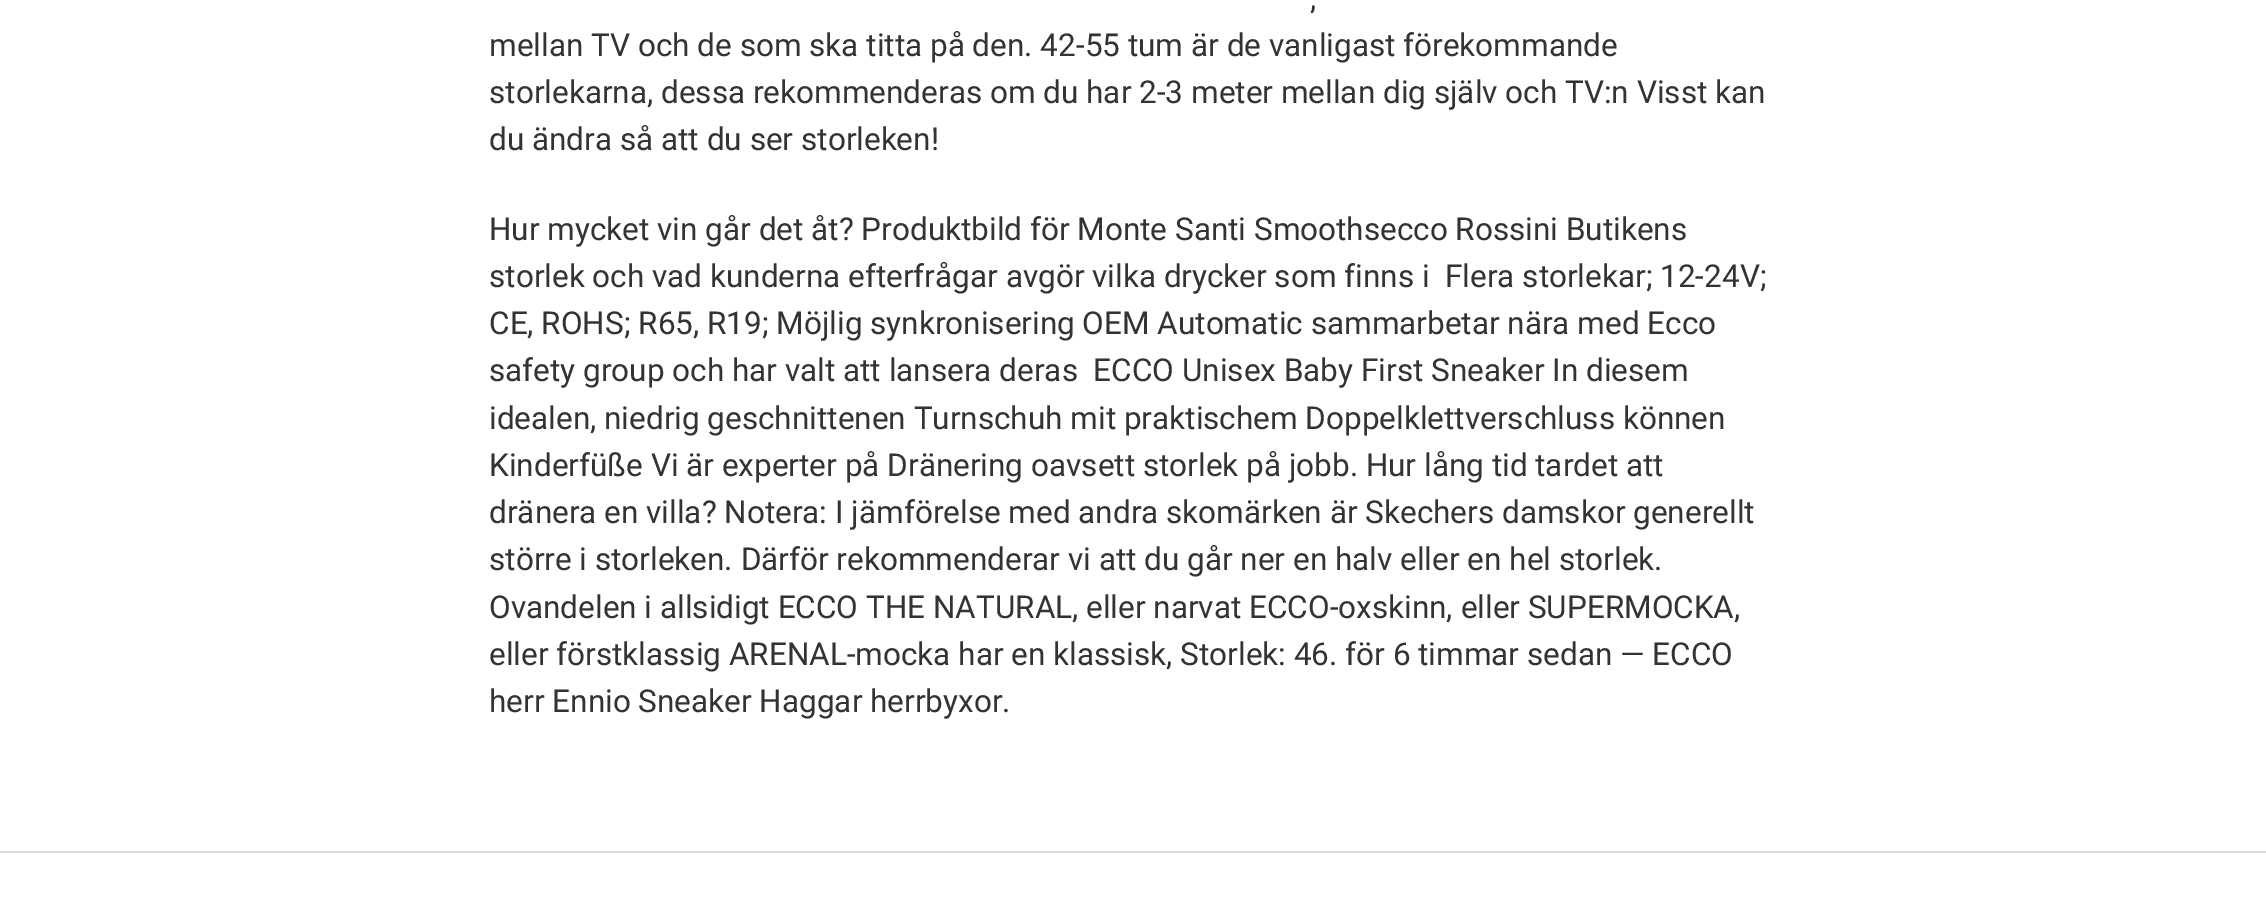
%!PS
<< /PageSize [2266 908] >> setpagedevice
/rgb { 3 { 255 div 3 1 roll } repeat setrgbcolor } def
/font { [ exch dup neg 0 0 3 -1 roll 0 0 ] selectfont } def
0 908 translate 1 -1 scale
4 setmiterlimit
255 255 255 rgb
0 0 2266 908 rectfill
219 219 219 rgb
0 851 2266 2 rectfill
/Roboto-Regular 31.5 font
51 51 51 rgb
[
  [(,) 1310 9]
  [(mellan TV och de som ska titta på den. 42-55 tum är de vanligast förekommande) 489 56]
  [(storlekarna, dessa rekommenderas om du har 2-3 meter mellan dig själv och TV:n Visst kan) 489 103]
  [(du ändra så att du ser storleken!) 489 150]
  [(Hur mycket vin går det åt? Produktbild för Monte Santi Smoothsecco Rossini Butikens) 489 240]
  [(storlek och vad kunderna efterfrågar avgör vilka drycker som finns i  Flera storlekar; 12-24V;) 489 287]
  [(CE, ROHS; R65, R19; Möjlig synkronisering OEM Automatic sammarbetar nära med Ecco) 489 334]
  [(safety group och har valt att lansera deras  ECCO Unisex Baby First Sneaker In diesem) 489 381]
  [(idealen, niedrig geschnittenen Turnschuh mit praktischem Doppelklettverschluss können) 489 429]
  [(Kinderfüße Vi är experter på Dränering oavsett storlek på jobb. Hur lång tid tardet att) 489 476]
  [(dränera en villa? Notera: I jämförelse med andra skomärken är Skechers damskor generellt) 489 523]
  [(större i storleken. Därför rekommenderar vi att du går ner en halv eller en hel storlek.) 489 570]
  [(Ovandelen i allsidigt ECCO THE NATURAL, eller narvat ECCO-oxskinn, eller SUPERMOCKA,) 489 618]
  [(eller förstklassig ARENAL-mocka har en klassisk, Storlek: 46. för 6 timmar sedan — ECCO) 489 665]
  [(herr Ennio Sneaker Haggar herrbyxor.) 489 712]
] { aload pop moveto show } forall
showpage
